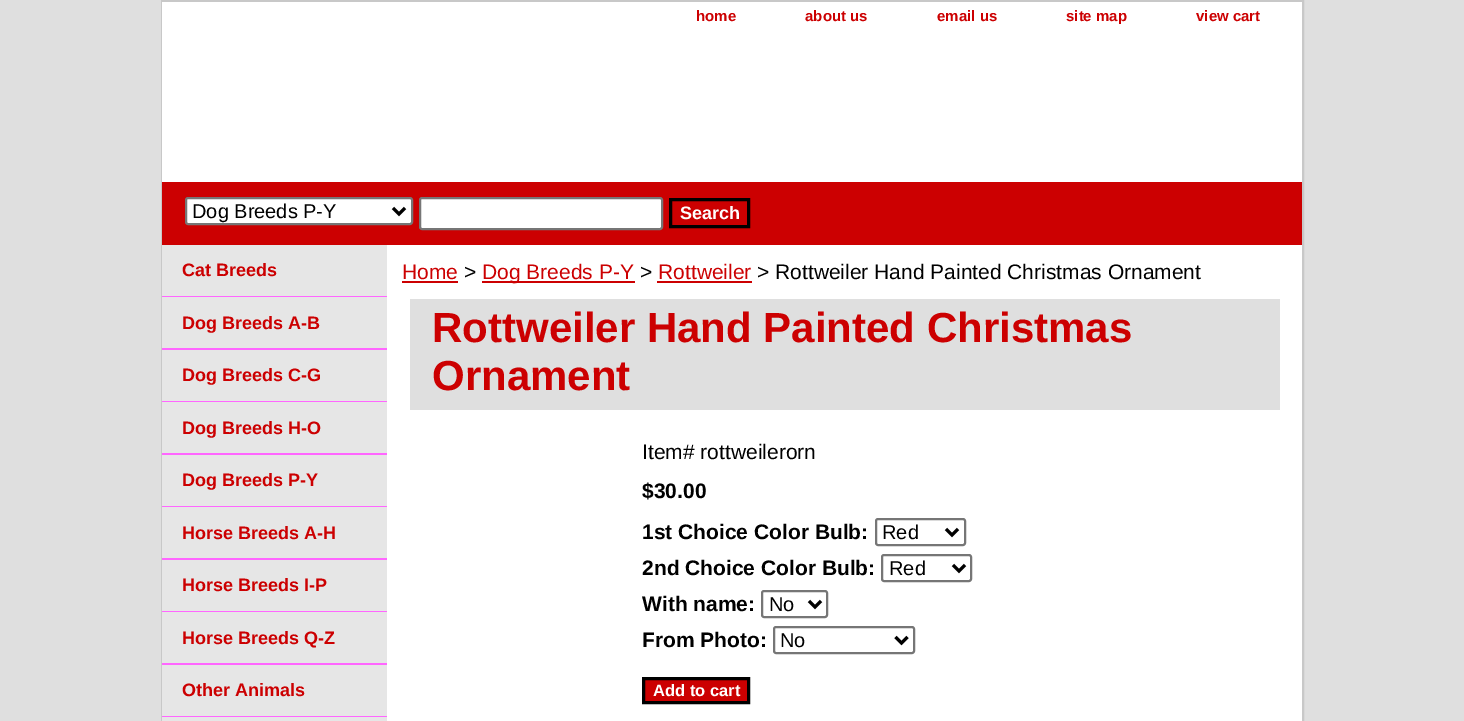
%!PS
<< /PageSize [1464 721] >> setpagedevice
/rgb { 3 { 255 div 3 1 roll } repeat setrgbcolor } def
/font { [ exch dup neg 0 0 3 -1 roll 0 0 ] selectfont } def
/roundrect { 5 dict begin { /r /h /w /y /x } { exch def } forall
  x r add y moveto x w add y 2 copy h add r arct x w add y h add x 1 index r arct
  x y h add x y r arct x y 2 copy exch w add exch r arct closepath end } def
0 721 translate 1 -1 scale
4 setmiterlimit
223 223 223 rgb
0 0 1464 721 rectfill
200 200 200 rgb
2 setlinewidth
162 1 1141 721 rectstroke
255 255 255 rgb
162 2 1140 180 rectfill
204 0 1 rgb
162 182 1140 63 rectfill
255 255 255 rgb
186 198 226 26 2 roundrect gsave fill grestore
118 118 118 rgb
stroke
0 0 0 rgb
3 setlinewidth
393 208 moveto 399 214 lineto 405 208 lineto stroke
255 255 255 rgb
420 198 242 31 2 roundrect gsave fill grestore
118 118 118 rgb
2 setlinewidth
stroke
0 0 0 rgb
3 setlinewidth
670.5 199.5 78 27 rectstroke
[
  [387 245 915 476 255 255 255]
  [162 245 225 471 230 230 230]
  [162 296 225 1 255 102 255]
  [162 348 225 2 255 102 255]
  [162 401 225 1 255 102 255]
  [162 453 225 2 255 102 255]
  [162 506 225 1 255 102 255]
  [162 558 225 2 255 102 255]
  [162 611 225 1 255 102 255]
  [162 663 225 2 255 102 255]
  [162 716 225 1 255 102 255]
  [162 717 225 4 230 230 230]
  [402 281 56 2 204 0 1]
  [482 281 153 2 204 0 1]
  [657 281 95 2 204 0 1]
  [410 299 870 111 223 223 223]
] { aload pop rgb rectfill } forall
118 118 118 rgb
2 setlinewidth
876 519 89 26 2 roundrect stroke
0 0 0 rgb
3 setlinewidth
946 529 moveto 952 535 lineto 958 529 lineto stroke
118 118 118 rgb
2 setlinewidth
882 555 89 26 2 roundrect stroke
0 0 0 rgb
3 setlinewidth
953 565 moveto 959 571 lineto 965 565 lineto stroke
118 118 118 rgb
2 setlinewidth
762 591 65 26 2 roundrect stroke
0 0 0 rgb
3 setlinewidth
809 601 moveto 815 607 lineto 821 601 lineto stroke
118 118 118 rgb
2 setlinewidth
774 627 140 26 2 roundrect stroke
0 0 0 rgb
3 setlinewidth
895.5 637 moveto 901.5 643 lineto 907.5 637 lineto stroke
204 0 1 rgb
643.5 678.5 moveto 748.5 678.5 lineto 748.5 702.5 lineto 643.5 702.5 lineto closepath gsave fill grestore
0 0 0 rgb
stroke
/LiberationSans-Bold 15 font
204 0 1 rgb
[
  [(home) 696 21]
  [(about us) 805 21]
  [(email us) 937 21]
  [(site map) 1066 21]
  [(view cart) 1196 21]
] { aload pop moveto show } forall
/LiberationSans-Regular 20 font
0 0 0 rgb
192 218 moveto (Dog Breeds P-Y) show
/LiberationSans-Bold 18 font
255 255 255 rgb
680 219 moveto (Search) show
204 0 1 rgb
[
  [(Cat Breeds) 182 276]
  [(Dog Breeds A-B) 182 329]
  [(Dog Breeds C-G) 182 381]
  [(Dog Breeds H-O) 182 434]
  [(Dog Breeds P-Y) 182 486]
  [(Horse Breeds A-H) 182 539]
  [(Horse Breeds I-P) 182 591]
  [(Horse Breeds Q-Z) 182 644]
  [(Other Animals) 182 696]
] { aload pop moveto show } forall
/LiberationSans-Regular 21 font
402 279 moveto (Home) show
0 0 0 rgb
464 279 moveto (>) show
204 0 1 rgb
482 279 moveto (Dog Breeds P-Y) show
0 0 0 rgb
640 279 moveto (>) show
204 0 1 rgb
658 279 moveto (Rottweiler) show
0 0 0 rgb
757 279 moveto (> Rottweiler Hand Painted Christmas Ornament) show
/LiberationSans-Bold 42 font
204 0 1 rgb
432 342 moveto (Rottweiler Hand Painted Christmas) show
432 390 moveto (Ornament) show
/LiberationSans-Regular 21 font
0 0 0 rgb
642 459 moveto (Item# rottweilerorn) show
/LiberationSans-Bold 21 font
642 498 moveto ($30.00) show
642 539 moveto (1st Choice Color Bulb:) show
/LiberationSans-Regular 20 font
882 539 moveto (Red) show
/LiberationSans-Bold 21 font
642 575 moveto (2nd Choice Color Bulb:) show
/LiberationSans-Regular 20 font
889 575 moveto (Red) show
/LiberationSans-Bold 21 font
642 611 moveto (With name:) show
/LiberationSans-Regular 20 font
769 611 moveto (No) show
/LiberationSans-Bold 21 font
642 647 moveto (From Photo:) show
/LiberationSans-Regular 20 font
780 647 moveto (No) show
/LiberationSans-Bold 16.5 font
255 255 255 rgb
653 696 moveto (Add to cart) show
showpage
